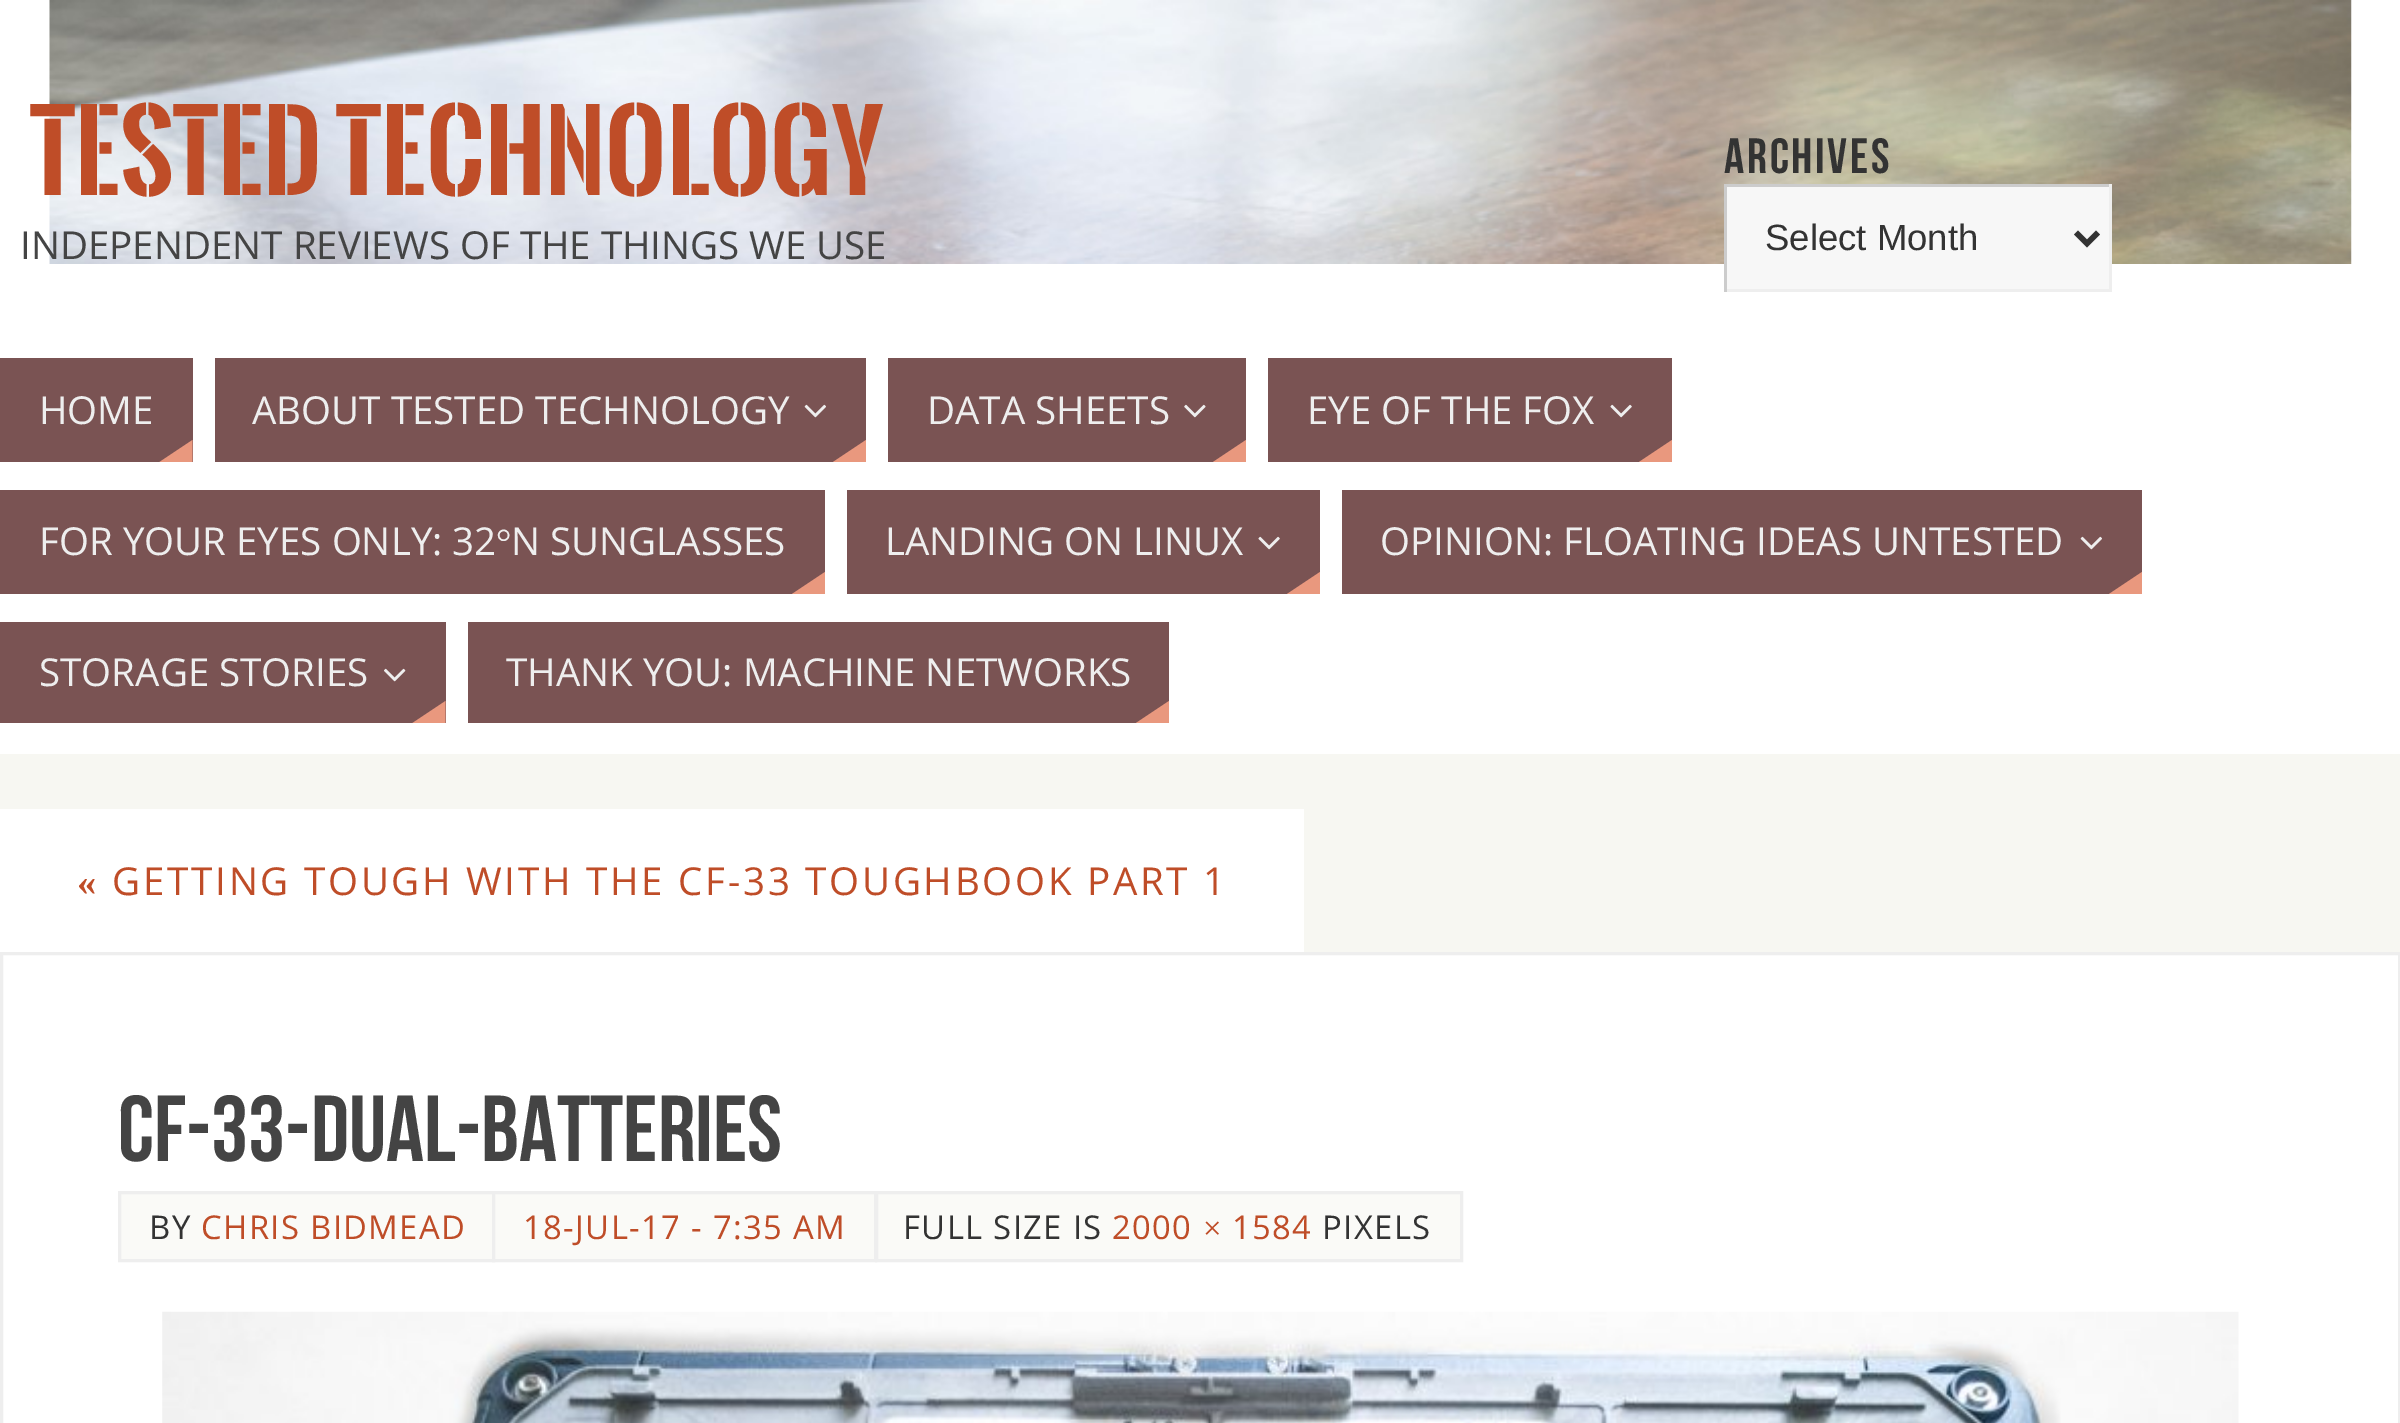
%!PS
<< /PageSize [2400 1423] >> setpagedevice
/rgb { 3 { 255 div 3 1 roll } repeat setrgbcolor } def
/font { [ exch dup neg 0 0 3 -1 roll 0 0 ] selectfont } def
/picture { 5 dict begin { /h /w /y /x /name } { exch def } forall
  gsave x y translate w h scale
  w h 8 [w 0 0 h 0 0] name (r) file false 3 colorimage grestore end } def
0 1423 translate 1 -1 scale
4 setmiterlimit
247 247 242 rgb
0 0 2400 1423 rectfill
255 255 255 rgb
0 0 2400 754 rectfill
(img/1.rgb) 49 0 2303 264 picture
[
  [1727 187 382 102 247 247 247]
  [1724 184 388 3 204 204 204]
  [2109 184 3 108 238 238 238]
  [1724 289 388 3 238 238 238]
  [1724 184 3 108 204 204 204]
] { aload pop rgb rectfill } forall
51 51 51 rgb
5.5 setlinewidth
2076 232.5 moveto 2087 243.5 lineto 2098 232.5 lineto stroke
122 83 83 rgb
0 358 193 104 rectfill
233 152 126 rgb
192.5 462 moveto 159.5 462 lineto 192.5 440 lineto closepath fill
122 83 83 rgb
215 358 651 104 rectfill
(img/2.rgb) 804 404 22 14 picture
233 152 126 rgb
866 462 moveto 833 462 lineto 866 440 lineto closepath fill
122 83 83 rgb
888 358 358 104 rectfill
(img/3.rgb) 1184 404 22 14 picture
233 152 126 rgb
1246 462 moveto 1213 462 lineto 1246 440 lineto closepath fill
122 83 83 rgb
1268 358 404 104 rectfill
(img/4.rgb) 1610 404 22 14 picture
233 152 126 rgb
1672 462 moveto 1639 462 lineto 1672 440 lineto closepath fill
122 83 83 rgb
0 490 825 104 rectfill
233 152 126 rgb
825 594 moveto 792 594 lineto 825 572 lineto closepath fill
122 83 83 rgb
847 490 473 104 rectfill
(img/4.rgb) 1258 536 22 14 picture
233 152 126 rgb
1320 594 moveto 1287 594 lineto 1320 572 lineto closepath fill
122 83 83 rgb
1342 490 800 104 rectfill
(img/2.rgb) 2080 536 22 14 picture
233 152 126 rgb
2142 594 moveto 2109 594 lineto 2142 572 lineto closepath fill
122 83 83 rgb
0 622 446 101 rectfill
(img/5.rgb) 384 668 22 14 picture
233 152 126 rgb
445.5 723 moveto 412.5 723 lineto 445.5 701 lineto closepath fill
122 83 83 rgb
468 622 701 101 rectfill
233 152 126 rgb
1169 723 moveto 1136 723 lineto 1169 701 lineto closepath fill
255 255 255 rgb
0 809 1304 143 rectfill
1.5 953.5 moveto 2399.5 953.5 lineto 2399.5 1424.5 lineto 1.5 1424.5 lineto closepath gsave fill grestore
238 238 238 rgb
3 setlinewidth
stroke
250 250 247 rgb
119.5 1192.5 moveto 493.5 1192.5 lineto 493.5 1260.5 lineto 119.5 1260.5 lineto closepath gsave fill grestore
238 238 238 rgb
stroke
250 250 247 rgb
493.5 1192.5 moveto 875.5 1192.5 lineto 875.5 1260.5 lineto 493.5 1260.5 lineto closepath gsave fill grestore
238 238 238 rgb
stroke
250 250 247 rgb
876.5 1192.5 moveto 1461.5 1192.5 lineto 1461.5 1260.5 lineto 876.5 1260.5 lineto closepath gsave fill grestore
238 238 238 rgb
stroke
(img/6.rgb) 162 1311 2077 112 picture
/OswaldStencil-Bold 104.5 font
191 77 40 rgb
30 195 moveto (TESTED TECHNOLOGY) show
/OpenSans-Regular 38.5 font
68 68 68 rgb
20 259 moveto (INDEPENDENT REVIEWS OF THE THINGS WE USE) show
/BebasNeue-Regular 49.5 font
51 51 51 rgb
1724 173 moveto 2.75 0 (ARCHIVES) ashow
/LiberationSans-Regular 36.5 font
1765 250 moveto (Select Month) show
/OpenSans-Regular 38.5 font
238 238 238 rgb
[
  [(HOME) 39 424]
  [(ABOUT TESTED TECHNOLOGY) 252 424]
  [(DATA SHEETS) 927 424]
  [(EYE OF THE FOX) 1307 424]
  [(FOR YOUR EYES ONLY: 32) 39 555]
] { aload pop moveto show } forall
/LiberationSerif-Regular 38.5 font
496 555 moveto (°) show
/OpenSans-Regular 38.5 font
[
  [(N SUNGLASSES) 511 555]
  [(LANDING ON LINUX) 885 555]
  [(OPINION: FLOATING IDEAS UNTESTED) 1380 555]
  [(STORAGE STORIES) 39 686]
  [(THANK YOU: MACHINE NETWORKS) 506 686]
] { aload pop moveto show } forall
/LiberationSerif-Bold 38.5 font
191 77 40 rgb
77 895 moveto 2.75 0 («) ashow
/OpenSans-Regular 38.5 font
112 895 moveto 2.75 0 (GETTING TOUGH WITH THE CF-33 TOUGHBOOK PART 1) ashow
/BebasNeue-Regular 93.5 font
68 68 68 rgb
118 1161 moveto (CF-33-Dual-Batteries) show
/OpenSans-Regular 32.75 font
51 51 51 rgb
149 1239 moveto 1.4 0 (BY) ashow
191 77 40 rgb
201 1239 moveto 1.4 0 (CHRIS BIDMEAD) ashow
523 1239 moveto 1.4 0 (18-JUL-17 - 7:35 AM) ashow
51 51 51 rgb
903 1239 moveto 1.4 0 (FULL SIZE IS) ashow
191 77 40 rgb
1112 1239 moveto 1.4 0 (2000) ashow
/LiberationSerif-Regular 32.75 font
1203 1239 moveto 1.4 0 (×) ashow
/OpenSans-Regular 32.75 font
1232 1239 moveto 1.4 0 (1584) ashow
51 51 51 rgb
1322 1239 moveto 1.4 0 (PIXELS) ashow
showpage
